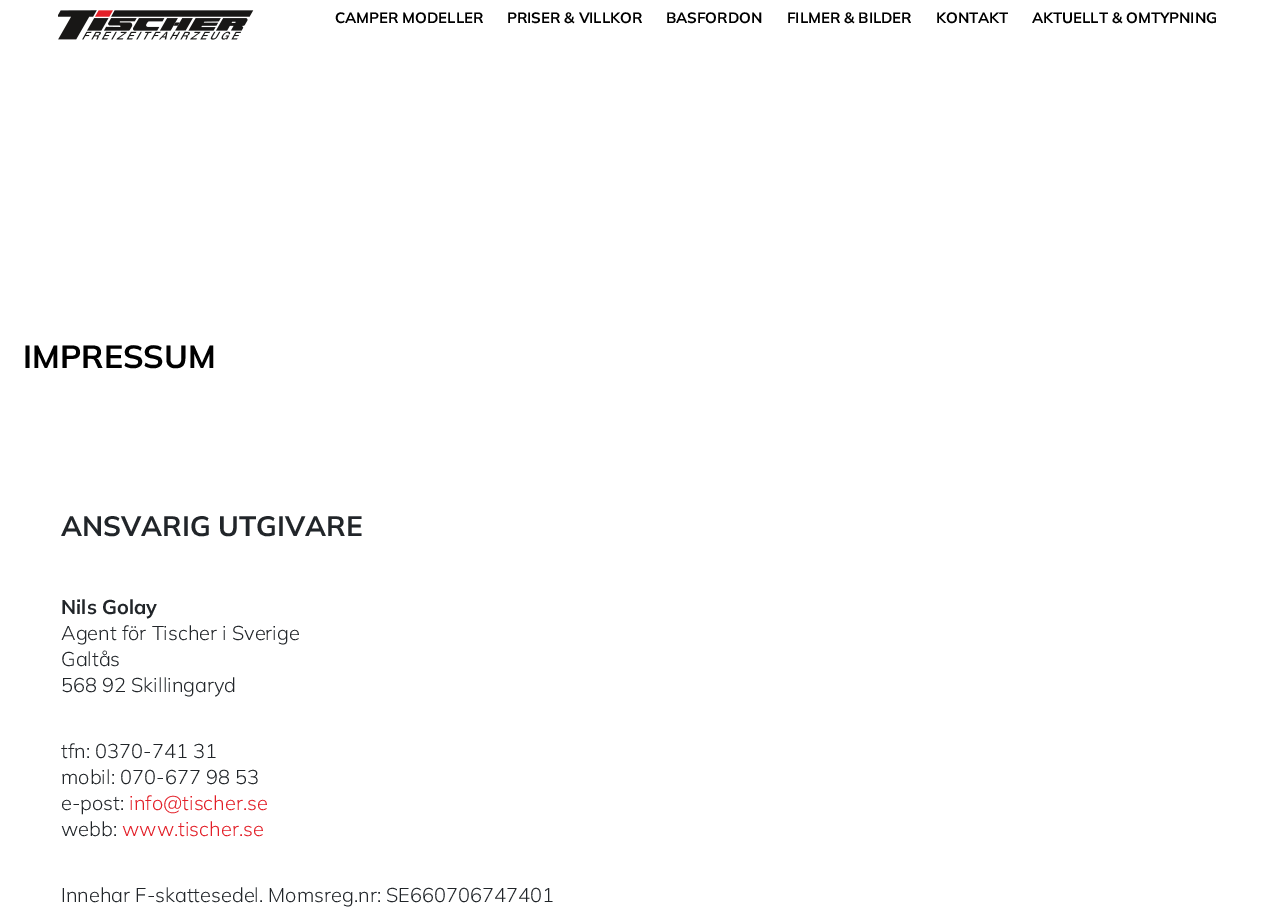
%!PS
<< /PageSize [1271 915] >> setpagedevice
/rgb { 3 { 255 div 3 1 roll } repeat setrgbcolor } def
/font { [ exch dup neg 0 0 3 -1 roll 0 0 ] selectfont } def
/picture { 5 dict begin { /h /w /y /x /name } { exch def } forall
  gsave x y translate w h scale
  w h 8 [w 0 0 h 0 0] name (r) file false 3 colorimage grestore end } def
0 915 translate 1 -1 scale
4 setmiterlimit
255 255 255 rgb
0 0 1271 915 rectfill
(img/1.rgb) 58 10 196 30 picture
/Mulish-ExtraLight 15 font
0 0 0 rgb
335 23 moveto -0.1 0 (CAMPER MODELLER) ashow
507 23 moveto -0.1 0 (PRISER & VILLKOR) ashow
666 23 moveto -0.1 0 (BASFORDON) ashow
787 23 moveto -0.1 0 (FILMER & BILDER) ashow
936 23 moveto -0.1 0 (KONTAKT) ashow
1032 23 moveto -0.1 0 (AKTUELLT & OMTYPNING) ashow
/Mulish-ExtraLight 32 font
23 368 moveto (IMPRESSUM) show
/Mulish-ExtraLight 28 font
33 37 41 rgb
61 536 moveto (ANSVARIG UTGIVARE) show
/Mulish-ExtraLight 20 font
61 614 moveto (Nils Golay) show
/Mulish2-ExtraLight 20 font
[
  [(Agent för Tischer i Sverige) 61 640]
  [(Galtås) 61 666]
  [(568 92 Skillingaryd) 61 692]
  [(tfn: 0370-741 31) 61 758]
  [(mobil: 070-677 98 53) 61 784]
  [(e-post:) 61 810]
] { aload pop moveto show } forall
227 31 40 rgb
129 810 moveto (info@tischer.se) show
33 37 41 rgb
61 836 moveto (webb:) show
227 31 40 rgb
122 836 moveto (www.tischer.se) show
33 37 41 rgb
61 902 moveto (Innehar F-skattesedel. Momsreg.nr: SE660706747401) show
showpage
